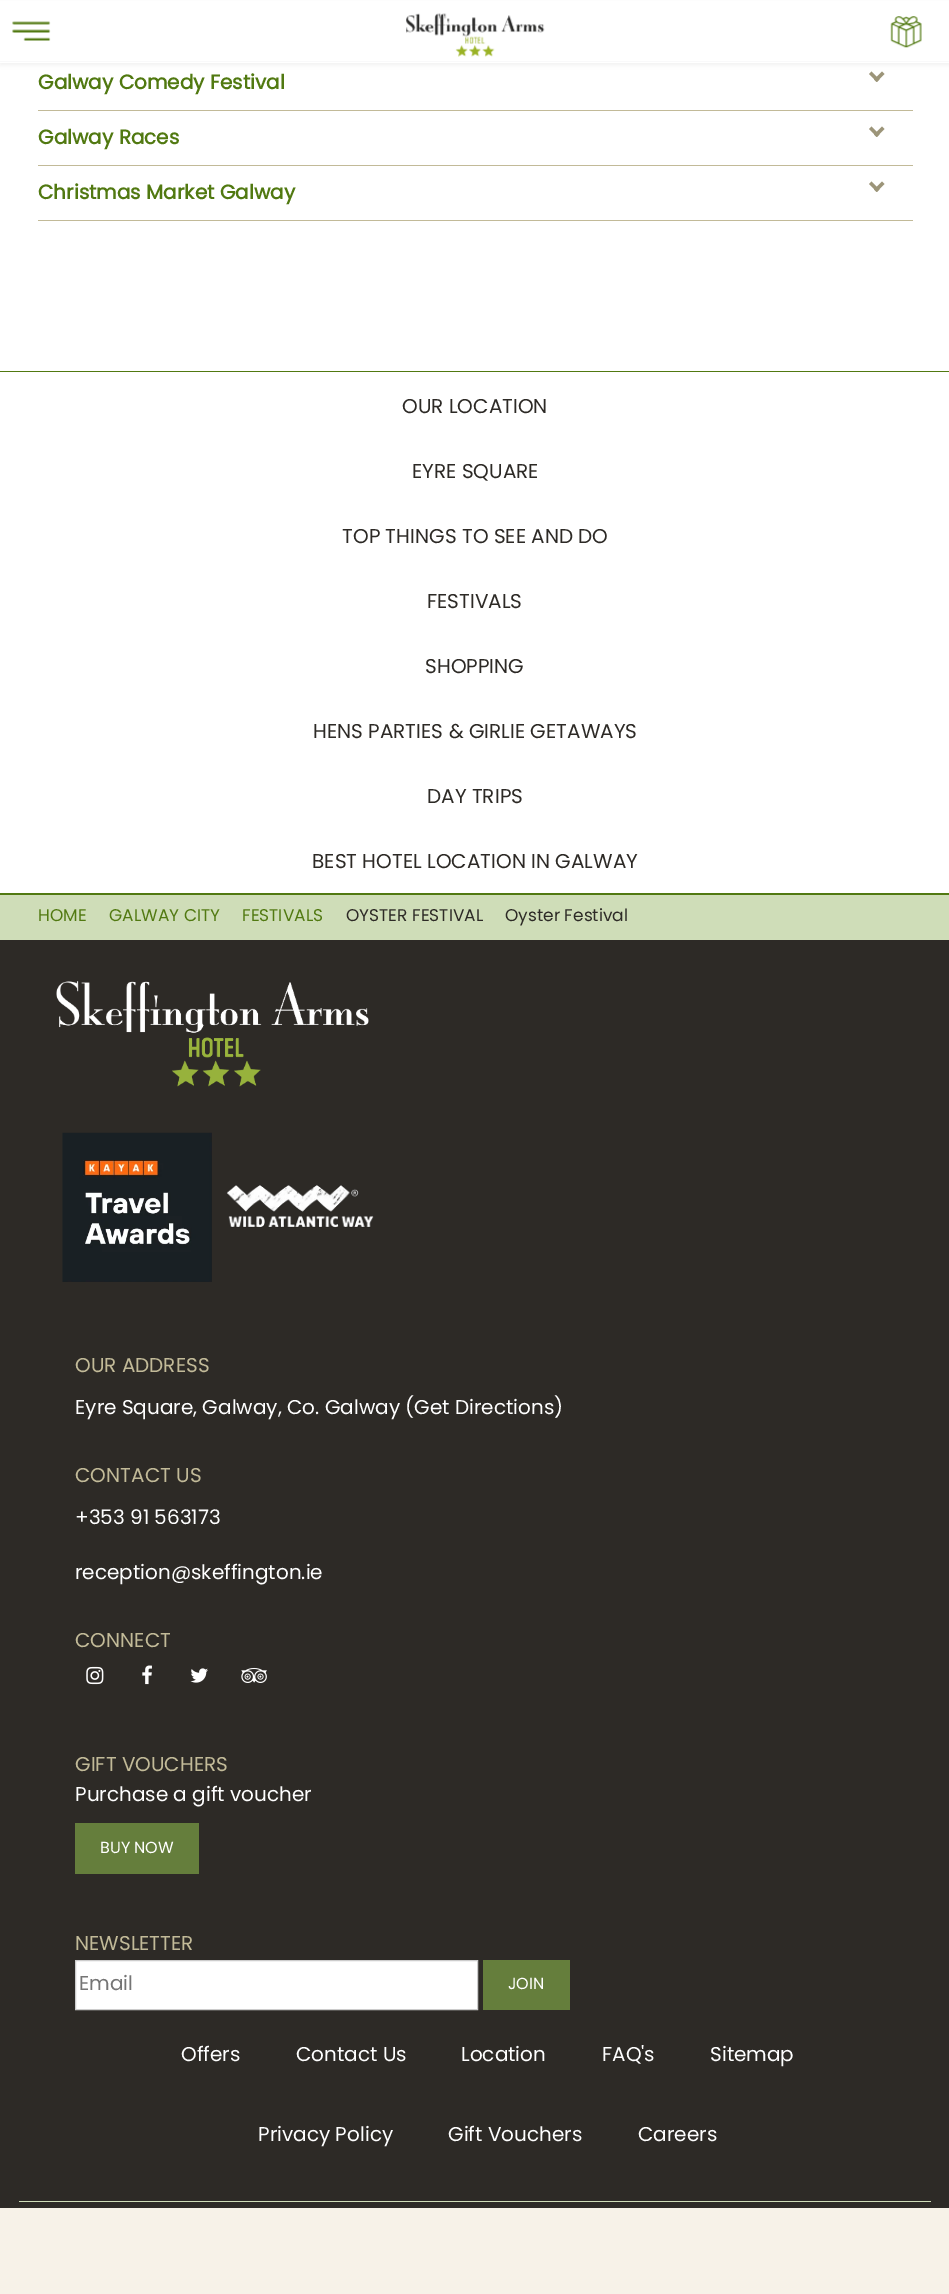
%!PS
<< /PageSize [949 2294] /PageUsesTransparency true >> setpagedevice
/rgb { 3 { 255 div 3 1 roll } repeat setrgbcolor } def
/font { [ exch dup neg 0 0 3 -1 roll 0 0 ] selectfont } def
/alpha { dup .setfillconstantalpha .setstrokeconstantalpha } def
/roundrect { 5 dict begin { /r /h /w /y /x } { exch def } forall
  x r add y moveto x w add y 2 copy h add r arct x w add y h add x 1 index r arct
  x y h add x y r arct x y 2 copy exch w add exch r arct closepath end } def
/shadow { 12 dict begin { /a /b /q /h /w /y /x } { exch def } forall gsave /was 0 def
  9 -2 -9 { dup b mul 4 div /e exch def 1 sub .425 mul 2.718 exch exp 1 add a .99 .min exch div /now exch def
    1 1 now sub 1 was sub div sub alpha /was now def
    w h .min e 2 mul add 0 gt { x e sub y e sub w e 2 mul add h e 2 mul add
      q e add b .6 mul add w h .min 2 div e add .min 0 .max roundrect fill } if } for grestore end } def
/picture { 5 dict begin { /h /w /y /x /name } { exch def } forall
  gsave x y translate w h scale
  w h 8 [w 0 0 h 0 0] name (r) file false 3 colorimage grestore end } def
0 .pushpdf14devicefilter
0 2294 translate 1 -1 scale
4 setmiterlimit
255 255 255 rgb
0 0 949 2294 rectfill
156 149 121 rgb
882 71.5 moveto 884.5 74 lineto 876.5 82 lineto 874 79.5 lineto closepath fill
869 74 moveto 871.5 71.5 lineto 879.5 79.5 lineto 877 82 lineto closepath fill
0 0 0 rgb
0 3 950 62 0 2.5 0.05 shadow
255 255 255 rgb
0 1 949 62 rectfill
249 249 250 rgb
0 61 949 1 rectfill
(img/1.rgb) 12 21 39 20 picture
(img/2.rgb) 406 13 139 44 picture
(img/3.rgb) 890 16 32 32 picture
194 186 152 rgb
38 110 875 1 rectfill
156 149 121 rgb
882 126.5 moveto 884.5 129 lineto 876.5 137 lineto 874 134.5 lineto closepath fill
869 129 moveto 871.5 126.5 lineto 879.5 134.5 lineto 877 137 lineto closepath fill
194 186 152 rgb
38 165 875 1 rectfill
156 149 121 rgb
882 181.5 moveto 884.5 184 lineto 876.5 192 lineto 874 189.5 lineto closepath fill
869 184 moveto 871.5 181.5 lineto 879.5 189.5 lineto 877 192 lineto closepath fill
[
  [38 220 875 1 194 186 152]
  [0 371 949 1 81 121 17]
  [0 895 949 45 207 221 184]
  [0 893 949 2 81 121 17]
  [0 940 949 1268 45 42 38]
] { aload pop rgb rectfill } forall
(img/4.rgb) 56 981 313 106 picture
(img/5.rgb) 62 1132 150 150 picture
(img/6.rgb) 226 1185 148 43 picture
(img/7.rgb) 86 1666 18 19 picture
(img/8.rgb) 142 1665 10 20 picture
(img/9.rgb) 190 1668 18 15 picture
(img/10.rgb) 241 1667 26 16 picture
101 126 60 rgb
75 1823 124 51 rectfill
255 255 255 rgb
75.5 1960.5 moveto 477.5 1960.5 lineto 477.5 2009.5 lineto 75.5 2009.5 lineto closepath gsave fill grestore
204 204 204 rgb
stroke
[
  [483 1960 87 50 101 126 60]
  [19 2201 912 1 207 221 184]
  [0 2208 949 86 247 242 232]
] { aload pop rgb rectfill } forall
/Poppins-Bold 20 font
81 121 17 rgb
[
  [(Galway Comedy Festival) 38 89]
  [(Galway Races) 38 144]
  [(Christmas Market Galway) 38 199]
] { aload pop moveto show } forall
/Poppins-Regular 20 font
45 42 38 rgb
[
  [(OUR LOCATION) 402 413]
  [(EYRE SQUARE) 412 478]
  [(TOP THINGS TO SEE AND DO) 342 543]
  [(FESTIVALS) 427 608]
  [(SHOPPING) 425 673]
  [(HENS PARTIES & GIRLIE GETAWAYS) 313 738]
  [(DAY TRIPS) 427 803]
  [(BEST HOTEL LOCATION IN GALWAY) 312 868]
] { aload pop moveto show } forall
/Poppins-Regular 17 font
81 121 17 rgb
[
  [(HOME) 38 921]
  [(GALWAY CITY) 109 921]
  [(FESTIVALS) 242 921]
] { aload pop moveto show } forall
45 42 38 rgb
346 921 moveto (OYSTER FESTIVAL) show
505 921 moveto (Oyster Festival) show
/Poppins-Regular 20 font
194 186 152 rgb
75 1372 moveto (OUR ADDRESS) show
255 255 255 rgb
75 1414 moveto (Eyre Square, Galway, Co. Galway \(Get Directions\)) show
194 186 152 rgb
75 1482 moveto (CONTACT US) show
255 255 255 rgb
75 1524 moveto (+353 91 563173) show
75 1579 moveto (reception@skeffington.ie) show
194 186 152 rgb
75 1647 moveto (CONNECT) show
75 1771 moveto (GIFT VOUCHERS) show
255 255 255 rgb
75 1801 moveto (Purchase a gift voucher) show
/Poppins-Regular 16 font
100 1853 moveto (BUY NOW) show
/Poppins-Regular 20 font
194 186 152 rgb
75 1950 moveto (NEWSLETTER) show
117 117 117 rgb
79 1990 moveto (Email) show
/Poppins-Regular 16 font
255 255 255 rgb
508 1989 moveto (JOIN) show
/Poppins-Regular 20 font
[
  [(Offers) 181 2061]
  [(Contact Us) 296 2061]
  [(Location) 461 2061]
  [(FAQ's) 602 2061]
  [(Sitemap) 710 2061]
  [(Privacy Policy) 258 2141]
  [(Gift Vouchers) 448 2141]
  [(Careers) 638 2141]
] { aload pop moveto show } forall
.poppdf14devicefilter showpage
